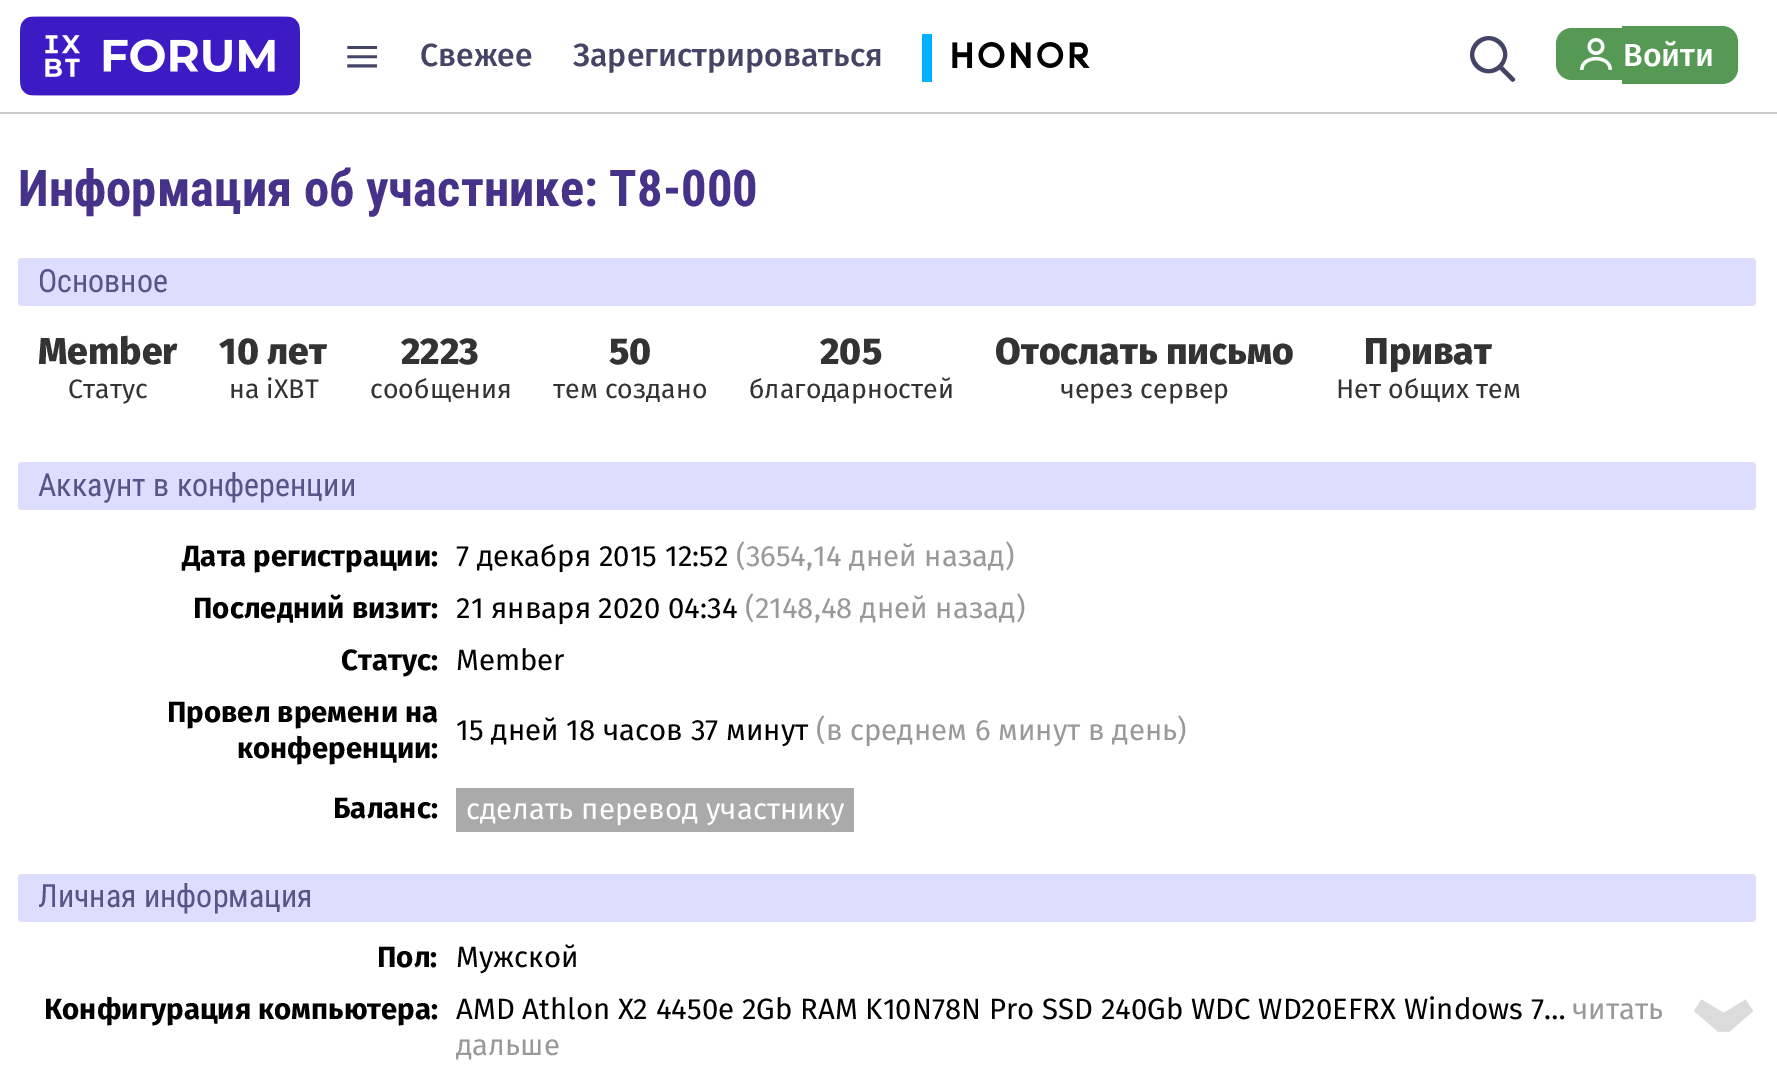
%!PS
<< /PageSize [1777 1082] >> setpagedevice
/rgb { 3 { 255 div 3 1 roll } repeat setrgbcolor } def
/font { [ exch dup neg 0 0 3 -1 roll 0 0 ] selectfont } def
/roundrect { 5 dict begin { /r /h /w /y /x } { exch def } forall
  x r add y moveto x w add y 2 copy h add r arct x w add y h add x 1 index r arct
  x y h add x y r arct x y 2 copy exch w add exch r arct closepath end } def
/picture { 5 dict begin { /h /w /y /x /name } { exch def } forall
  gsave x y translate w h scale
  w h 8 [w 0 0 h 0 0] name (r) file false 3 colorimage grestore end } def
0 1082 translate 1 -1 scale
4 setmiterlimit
255 255 255 rgb
0 0 1777 1082 rectfill
204 204 204 rgb
0 112 1777 2 rectfill
(img/1.rgb) 20 16 280 80 picture
0 177 255 rgb
922 34 10 48 rectfill
(img/2.rgb) 952 42 138 26 picture
(img/3.rgb) 1470 36 46 46 picture
85 153 85 rgb
1572 28 moveto 1622 28 lineto 1622 80 lineto 1572 80 lineto 1563 80 1556 73 1556 64 curveto 1556 44 lineto 1556 35 1563 28 1572 28 curveto closepath fill
(img/4.rgb) 1580 38 32 32 picture
1622 26 moveto 1722 26 lineto 1731 26 1738 33 1738 42 curveto 1738 68 lineto 1738 77 1731 84 1722 84 curveto 1622 84 lineto closepath fill
221 221 255 rgb
18 258 1738 48 4 roundrect fill
18 462 1738 48 4 roundrect fill
170 170 170 rgb
456 788 398 44 rectfill
221 221 255 rgb
18 874 1738 48 4 roundrect fill
/LiberationSerif-Regular 64 font
68 68 102 rgb
344 78 moveto (≡) show
/FiraSans-Medium 32 font
420 66 moveto (Свежее) show
573 66 moveto (Зарегистрироваться) show
255 255 255 rgb
1623 66 moveto (Войти) show
/RobotoCondensed-Bold 50.7 font
68 51 136 rgb
18 206 moveto (Информация об участнике: T8-000) show
/RobotoCondensed-Regular 32 font
85 85 136 rgb
38 292 moveto (Основное) show
/FiraSans-ExtraBold 37.25 font
51 51 51 rgb
38 364 moveto (Member) show
/FiraSans-Regular 26.75 font
68 398 moveto (Статус) show
/FiraSans-ExtraBold 37.25 font
219 364 moveto (10 лет) show
/FiraSans-Regular 26.75 font
229 398 moveto (на iXBT) show
/FiraSans-ExtraBold 37.25 font
401 364 moveto (2223) show
/FiraSans-Regular 26.75 font
370 398 moveto (сообщения) show
/FiraSans-ExtraBold 37.25 font
609 364 moveto (50) show
/FiraSans-Regular 26.75 font
553 398 moveto (тем создано) show
/FiraSans-ExtraBold 37.25 font
820 364 moveto (205) show
/FiraSans-Regular 26.75 font
749 398 moveto (благодарностей) show
/FiraSans-ExtraBold 37.25 font
995 364 moveto (Отослать письмо) show
/FiraSans-Regular 26.75 font
1060 398 moveto (через сервер) show
/FiraSans-ExtraBold 37.25 font
1364 364 moveto (Приват) show
/FiraSans-Regular 26.75 font
1336 398 moveto (Нет общих тем) show
/RobotoCondensed-Regular 32 font
85 85 136 rgb
38 496 moveto (Аккаунт в конференции) show
/FiraSans-Bold 29.35 font
0 0 0 rgb
182 566 moveto (Дата регистрации:) show
/FiraSans-Regular 29.35 font
456 566 moveto (7 декабря 2015 12:52) show
153 153 153 rgb
736 566 moveto (\(3654,14 дней назад\)) show
/FiraSans-Bold 29.35 font
0 0 0 rgb
193 618 moveto (Последний визит:) show
/FiraSans-Regular 29.35 font
456 618 moveto (21 января 2020 04:34) show
153 153 153 rgb
745 618 moveto (\(2148,48 дней назад\)) show
/FiraSans-Bold 29.35 font
0 0 0 rgb
341 670 moveto (Статус:) show
/FiraSans-Regular 29.35 font
456 670 moveto (Member) show
/FiraSans-Bold 29.35 font
167 722 moveto (Провел времени на) show
237 758 moveto (конференции:) show
/FiraSans-Regular 29.35 font
456 740 moveto (15 дней 18 часов 37 минут) show
153 153 153 rgb
816 740 moveto (\(в среднем 6 минут в день\)) show
/FiraSans-Bold 29.35 font
0 0 0 rgb
333 818 moveto (Баланс:) show
/FiraSans-Regular 29.35 font
255 255 255 rgb
466 819 moveto (сделать перевод участнику) show
/RobotoCondensed-Regular 32 font
85 85 136 rgb
38 907 moveto (Личная информация) show
/FiraSans-Bold 29.35 font
0 0 0 rgb
377 967 moveto (Пол:) show
/FiraSans-Regular 29.35 font
456 967 moveto (Мужской) show
/FiraSans-Bold 29.35 font
44 1019 moveto (Конфигурация компьютера:) show
/FiraSans-Regular 29.35 font
456 1019 moveto (AMD Athlon X2 4450e 2Gb RAM K10N78N Pro SSD 240Gb WDC WD20EFRX Windows 7…) show
153 153 153 rgb
1572 1019 moveto (читать) show
456 1055 moveto (дальше) show
/FiraSans-ExtraBold 107 font
219 219 219 rgb
gsave 1754 1035 translate -90 rotate 0 0 moveto (‹) show grestore
showpage
